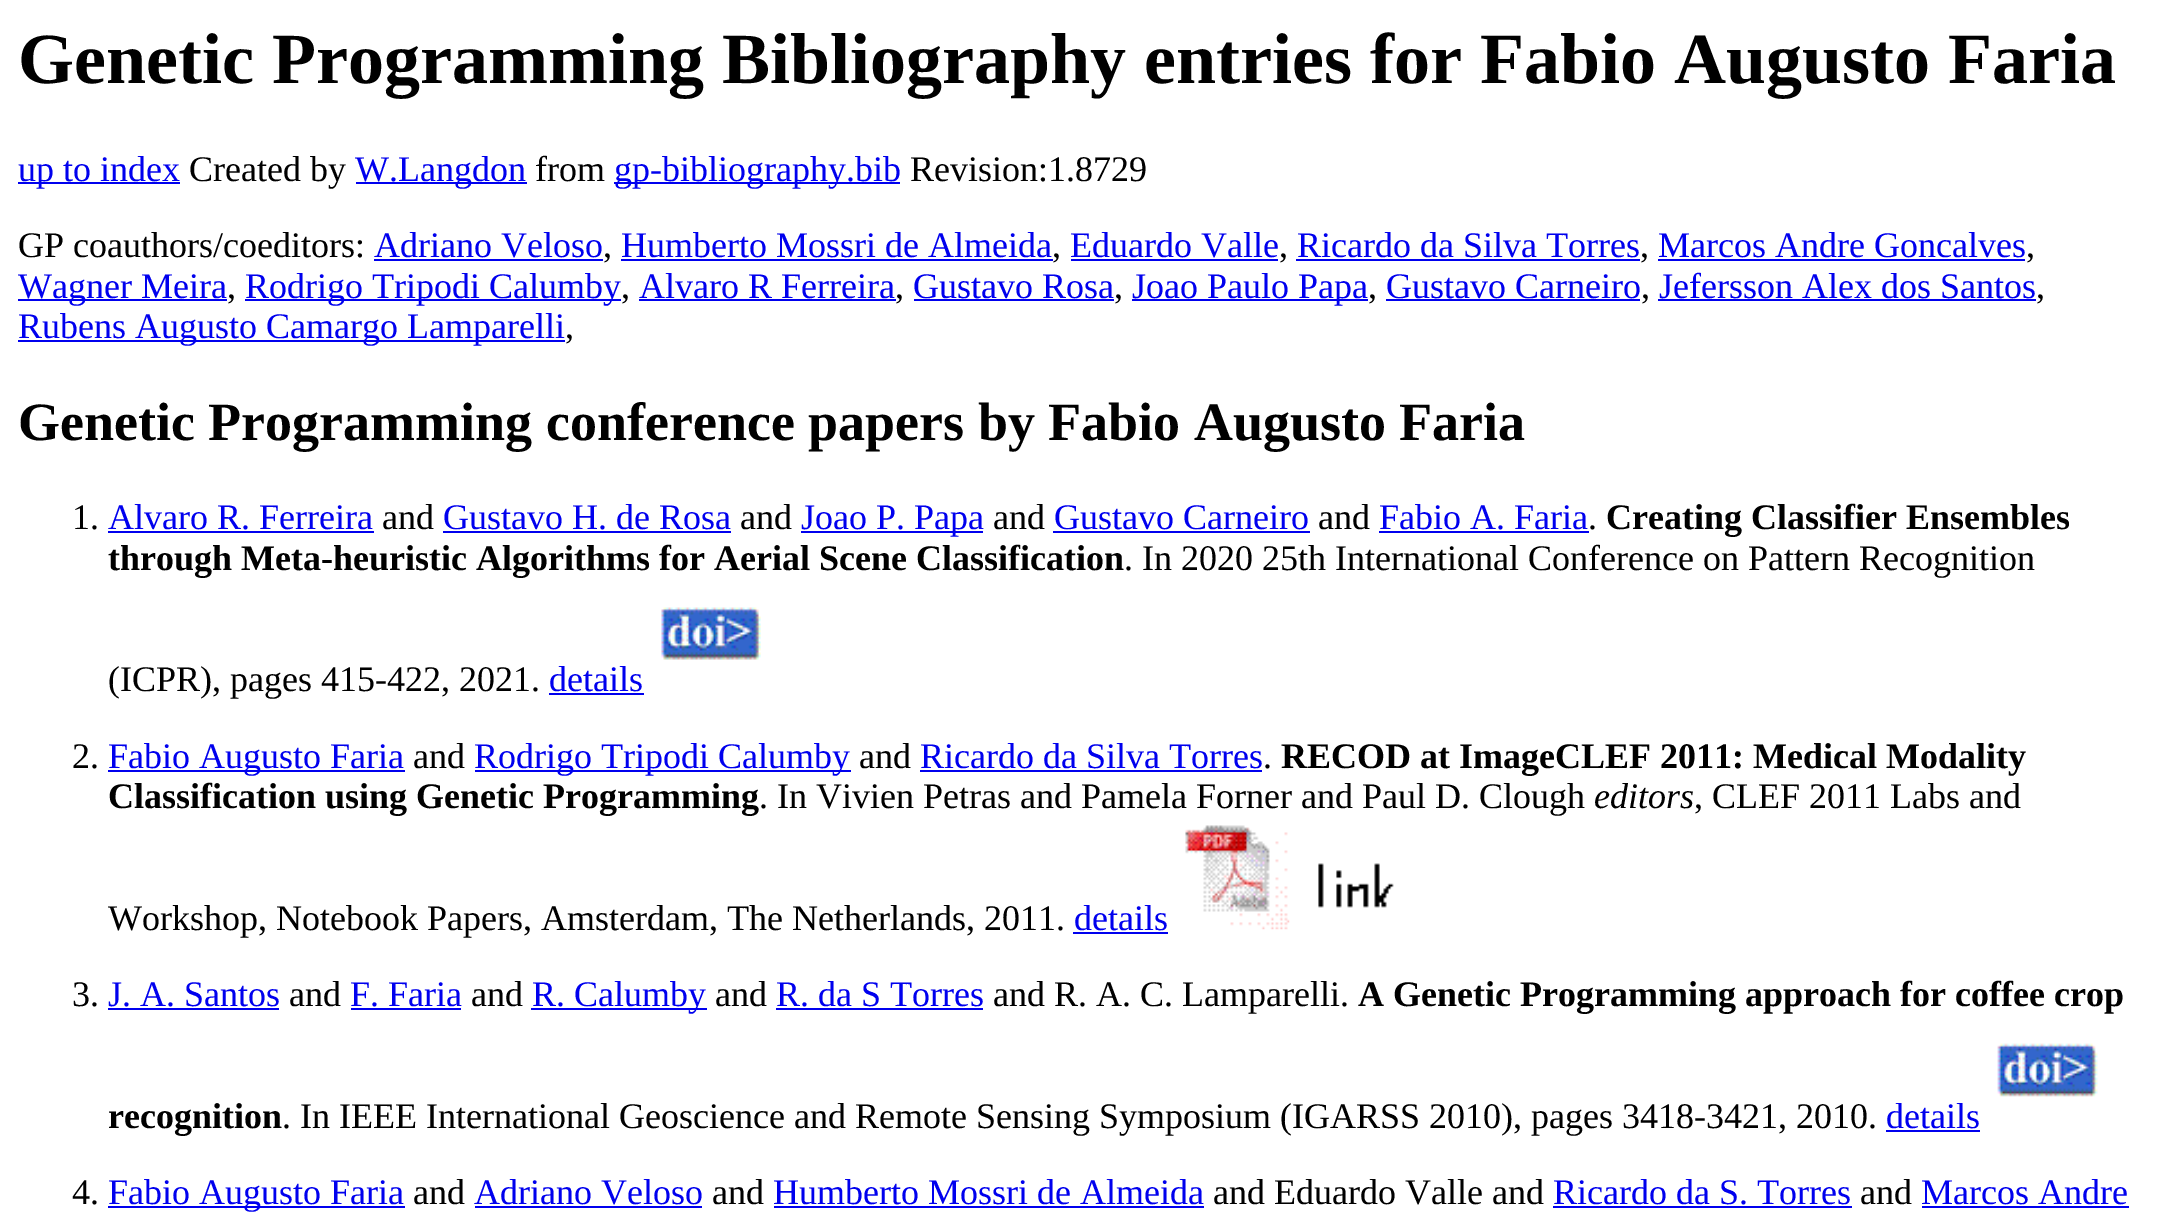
%!PS
<< /PageSize [2160 1220] >> setpagedevice
/rgb { 3 { 255 div 3 1 roll } repeat setrgbcolor } def
/font { [ exch dup neg 0 0 3 -1 roll 0 0 ] selectfont } def
/picture { 5 dict begin { /h /w /y /x /name } { exch def } forall
  gsave x y translate w h scale
  w h 8 [w 0 0 h 0 0] name (r) file false 3 colorimage grestore end } def
0 1220 translate 1 -1 scale
4 setmiterlimit
255 255 255 rgb
0 0 2160 1220 rectfill
[
  [18 182 162 2 0 0 238]
  [356 182 171 2 0 0 238]
  [614 182 286 2 0 0 238]
  [374 259 229 2 0 0 238]
  [621 259 432 2 0 0 238]
  [1071 259 207 2 0 0 238]
  [1296 259 344 2 0 0 238]
  [1658 259 367 2 0 0 238]
  [18 299 209 2 0 0 238]
  [245 299 376 2 0 0 238]
  [639 299 257 2 0 0 238]
  [914 299 200 2 0 0 238]
  [1132 299 236 2 0 0 238]
  [1386 299 254 2 0 0 238]
  [1658 299 378 2 0 0 238]
  [18 340 547 2 0 0 238]
  [108 531 266 2 0 0 238]
  [443 531 288 2 0 0 238]
  [801 531 182 2 0 0 238]
  [1053 531 257 2 0 0 238]
  [1379 531 210 2 0 0 238]
] { aload pop rgb rectfill } forall
(img/1.rgb) 661 607 100 53 picture
[
  [549 693 95 2 0 0 238]
  [108 770 297 2 0 0 238]
  [475 770 376 2 0 0 238]
  [920 770 342 2 0 0 238]
] { aload pop rgb rectfill } forall
(img/2.rgb) 1185 825 105 105 picture
(img/3.rgb) 1318 863 76 45 picture
[
  [1073 932 95 2 0 0 238]
  [108 1008 171 2 0 0 238]
  [351 1008 110 2 0 0 238]
  [531 1008 176 2 0 0 238]
  [776 1008 207 2 0 0 238]
] { aload pop rgb rectfill } forall
(img/4.rgb) 1997 1043 101 54 picture
[
  [1886 1130 94 2 0 0 238]
  [108 1206 297 2 0 0 238]
  [475 1206 227 2 0 0 238]
  [774 1206 430 2 0 0 238]
  [1553 1206 299 2 0 0 238]
  [1922 1206 207 2 0 0 238]
] { aload pop rgb rectfill } forall
/LiberationSerif-Bold 72 font
0 0 0 rgb
18 83 moveto (Genetic Programming Bibliography entries for Fabio Augusto Faria) show
/LiberationSerif-Regular 36 font
0 0 238 rgb
18 181 moveto (up to index) show
0 0 0 rgb
189 181 moveto (Created by) show
0 0 238 rgb
355 181 moveto (W.Langdon) show
0 0 0 rgb
535 181 moveto (from) show
0 0 238 rgb
614 181 moveto (gp-bibliography.bib) show
0 0 0 rgb
910 181 moveto (Revision:1.8729) show
18 257 moveto (GP coauthors/coeditors:) show
0 0 238 rgb
374 257 moveto (Adriano Veloso) show
0 0 0 rgb
603 257 moveto (,) show
0 0 238 rgb
621 257 moveto (Humberto Mossri de Almeida) show
0 0 0 rgb
1052 257 moveto (,) show
0 0 238 rgb
1070 257 moveto (Eduardo Valle) show
0 0 0 rgb
1279 257 moveto (,) show
0 0 238 rgb
1297 257 moveto (Ricardo da Silva Torres) show
0 0 0 rgb
1640 257 moveto (,) show
0 0 238 rgb
1658 257 moveto (Marcos Andre Goncalves) show
0 0 0 rgb
2026 257 moveto (,) show
0 0 238 rgb
18 298 moveto (Wagner Meira) show
0 0 0 rgb
227 298 moveto (,) show
0 0 238 rgb
245 298 moveto (Rodrigo Tripodi Calumby) show
0 0 0 rgb
621 298 moveto (,) show
0 0 238 rgb
639 298 moveto (Alvaro R Ferreira) show
0 0 0 rgb
895 298 moveto (,) show
0 0 238 rgb
913 298 moveto (Gustavo Rosa) show
0 0 0 rgb
1114 298 moveto (,) show
0 0 238 rgb
1132 298 moveto (Joao Paulo Papa) show
0 0 0 rgb
1368 298 moveto (,) show
0 0 238 rgb
1386 298 moveto (Gustavo Carneiro) show
0 0 0 rgb
1641 298 moveto (,) show
0 0 238 rgb
1659 298 moveto (Jefersson Alex dos Santos) show
0 0 0 rgb
2036 298 moveto (,) show
0 0 238 rgb
18 338 moveto (Rubens Augusto Camargo Lamparelli) show
0 0 0 rgb
565 338 moveto (,) show
/LiberationSerif-Bold 54 font
18 440 moveto (Genetic Programming conference papers by Fabio Augusto Faria) show
/LiberationSerif-Regular 36 font
72 529 moveto (1.) show
0 0 238 rgb
108 529 moveto (Alvaro R. Ferreira) show
0 0 0 rgb
382 529 moveto (and) show
0 0 238 rgb
443 529 moveto (Gustavo H. de Rosa) show
0 0 0 rgb
740 529 moveto (and) show
0 0 238 rgb
801 529 moveto (Joao P. Papa) show
0 0 0 rgb
993 529 moveto (and) show
0 0 238 rgb
1054 529 moveto (Gustavo Carneiro) show
0 0 0 rgb
1318 529 moveto (and) show
0 0 238 rgb
1379 529 moveto (Fabio A. Faria) show
0 0 0 rgb
1588 529 moveto (.) show
/LiberationSerif-Bold 36 font
1606 529 moveto (Creating Classifier Ensembles) show
108 570 moveto (through Meta-heuristic Algorithms for Aerial Scene Classification) show
/LiberationSerif-Regular 36 font
1124 570 moveto (. In 2020 25th International Conference on Pattern Recognition) show
108 691 moveto (\(ICPR\), pages 415-422, 2021.) show
0 0 238 rgb
549 691 moveto (details) show
0 0 0 rgb
72 768 moveto (2.) show
0 0 238 rgb
108 768 moveto (Fabio Augusto Faria) show
0 0 0 rgb
413 768 moveto (and) show
0 0 238 rgb
474 768 moveto (Rodrigo Tripodi Calumby) show
0 0 0 rgb
859 768 moveto (and) show
0 0 238 rgb
920 768 moveto (Ricardo da Silva Torres) show
0 0 0 rgb
1263 768 moveto (.) show
/LiberationSerif-Bold 36 font
1281 768 moveto (RECOD at ImageCLEF 2011: Medical Modality) show
108 808 moveto (Classification using Genetic Programming) show
/LiberationSerif-Regular 36 font
759 808 moveto (. In Vivien Petras and Pamela Forner and Paul D. Clough) show
/LiberationSerif-Italic 36 font
1594 808 moveto (editors) show
/LiberationSerif-Regular 36 font
1694 808 moveto (, CLEF 2011 Labs and) show
108 930 moveto (Workshop, Notebook Papers, Amsterdam, The Netherlands, 2011.) show
0 0 238 rgb
1074 930 moveto (details) show
0 0 0 rgb
72 1006 moveto (3.) show
0 0 238 rgb
108 1006 moveto (J. A. Santos) show
0 0 0 rgb
289 1006 moveto (and) show
0 0 238 rgb
350 1006 moveto (F. Faria) show
0 0 0 rgb
471 1006 moveto (and) show
0 0 238 rgb
532 1006 moveto (R. Calumby) show
0 0 0 rgb
715 1006 moveto (and) show
0 0 238 rgb
776 1006 moveto (R. da S Torres) show
0 0 0 rgb
993 1006 moveto (and R. A. C. Lamparelli.) show
/LiberationSerif-Bold 36 font
1358 1006 moveto (A Genetic Programming approach for coffee crop) show
108 1128 moveto (recognition) show
/LiberationSerif-Regular 36 font
282 1128 moveto (. In IEEE International Geoscience and Remote Sensing Symposium \(IGARSS 2010\), pages 3418-3421, 2010.) show
0 0 238 rgb
1886 1128 moveto (details) show
0 0 0 rgb
72 1204 moveto (4.) show
0 0 238 rgb
108 1204 moveto (Fabio Augusto Faria) show
0 0 0 rgb
413 1204 moveto (and) show
0 0 238 rgb
474 1204 moveto (Adriano Veloso) show
0 0 0 rgb
712 1204 moveto (and) show
0 0 238 rgb
773 1204 moveto (Humberto Mossri de Almeida) show
0 0 0 rgb
1213 1204 moveto (and Eduardo Valle and) show
0 0 238 rgb
1553 1204 moveto (Ricardo da S. Torres) show
0 0 0 rgb
1860 1204 moveto (and) show
0 0 238 rgb
1921 1204 moveto (Marcos Andre) show
showpage
